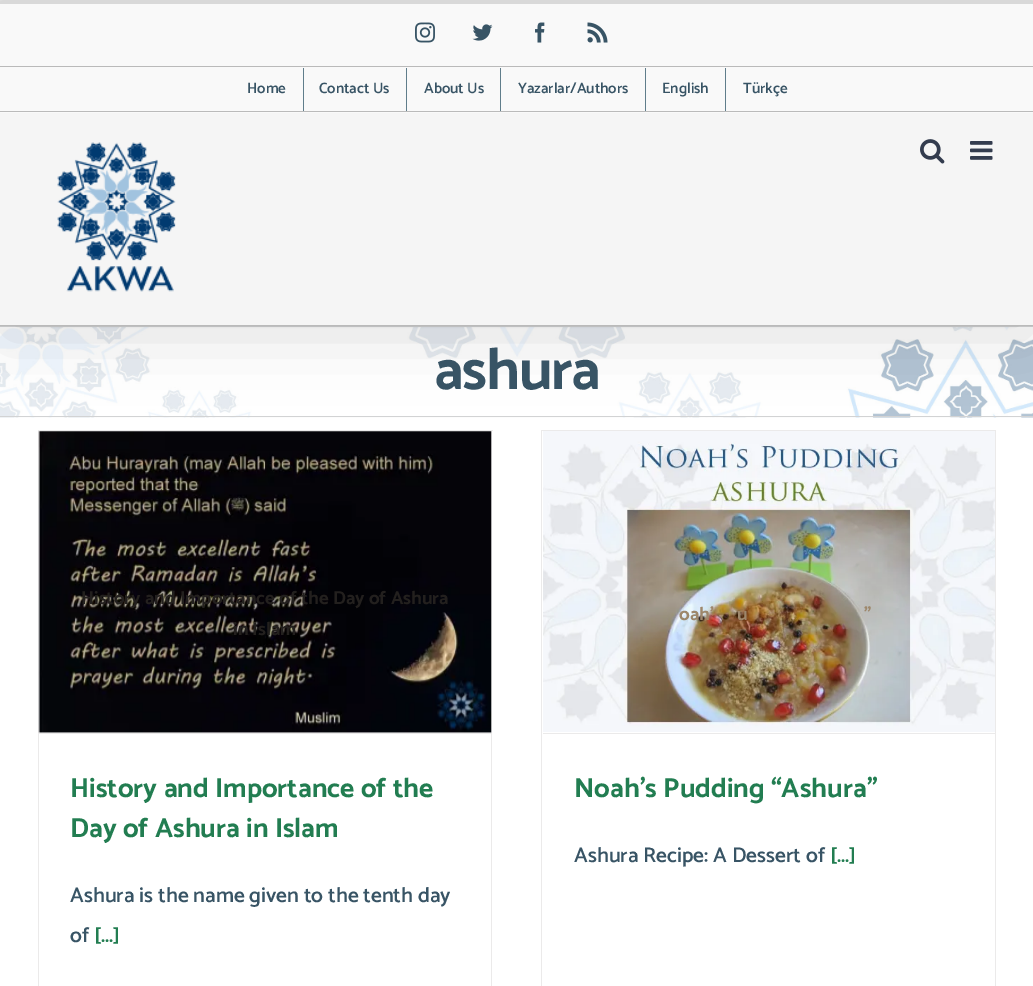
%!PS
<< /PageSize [1033 986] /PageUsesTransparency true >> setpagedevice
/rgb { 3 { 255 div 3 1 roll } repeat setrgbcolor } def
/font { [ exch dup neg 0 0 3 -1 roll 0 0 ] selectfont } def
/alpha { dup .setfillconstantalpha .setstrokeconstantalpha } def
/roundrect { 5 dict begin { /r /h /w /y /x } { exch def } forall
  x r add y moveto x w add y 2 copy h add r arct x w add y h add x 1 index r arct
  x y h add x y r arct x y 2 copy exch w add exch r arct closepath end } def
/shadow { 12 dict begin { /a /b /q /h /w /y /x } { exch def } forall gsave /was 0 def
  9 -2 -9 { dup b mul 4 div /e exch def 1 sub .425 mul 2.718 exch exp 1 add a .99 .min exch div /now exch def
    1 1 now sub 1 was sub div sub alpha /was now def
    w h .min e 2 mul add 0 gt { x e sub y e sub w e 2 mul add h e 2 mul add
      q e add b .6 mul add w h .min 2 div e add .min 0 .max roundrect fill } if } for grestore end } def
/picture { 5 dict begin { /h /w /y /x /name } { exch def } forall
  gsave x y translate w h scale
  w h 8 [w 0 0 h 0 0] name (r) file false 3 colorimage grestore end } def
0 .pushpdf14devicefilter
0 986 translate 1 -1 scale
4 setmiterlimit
226 226 226 rgb
0 0 1033 986 rectfill
255 255 255 rgb
0 418 1033 568 rectfill
249 249 249 rgb
0 417 1033 1 rectfill
(img/8.rgb) 0 327 1033 91 picture
210 211 212 rgb
0 326 1033 1 rectfill
0 416 1033 1 rectfill
0 0 0 rgb
3 19 1028 317 0 31 0.14 shadow
[
  [0 4 1033 109 249 249 249]
  [0 111 1033 1 186 186 186]
  [0 66 1033 1 186 186 186]
] { aload pop rgb rectfill } forall
(img/1.rgb) 415 22 20 21 picture
(img/2.rgb) 472 24 21 17 picture
(img/3.rgb) 535 22 10 21 picture
(img/4.rgb) 587 22 21 21 picture
[
  [303 68 1 43 96 125 139]
  [406 68 1 43 96 125 139]
  [500 68 1 43 96 125 139]
  [645 68 1 43 96 125 139]
  [725 68 1 43 96 125 139]
  [0 113 1033 212 245 245 245]
  [0 325 1033 1 186 186 186]
] { aload pop rgb rectfill } forall
(img/5.rgb) 57 142 119 150 picture
(img/6.rgb) 920 139 25 25 picture
(img/7.rgb) 970 141 23 19 picture
[
  [38 430 455 1 235 234 234]
  [491 430 1 556 235 234 234]
  [38 430 1 556 235 234 234]
  [39 733 452 1 235 234 234]
] { aload pop rgb rectfill } forall
(img/9.rgb) 38 431 454 302 picture
[
  [541 430 455 1 235 234 234]
  [995 430 1 556 235 234 234]
  [541 430 1 556 235 234 234]
  [543 733 452 1 235 234 234]
] { aload pop rgb rectfill } forall
(img/10.rgb) 543 431 452 301 picture
/Catamaran-SemiBold 15 font
56 84 101 rgb
[
  [(Home) 247 93]
  [(Contact Us) 319 93]
  [(About Us) 424 93]
  [(Yazarlar/Authors) 518 93]
  [(English) 662 93]
  [(Türkçe) 743 93]
] { aload pop moveto show } forall
/Catamaran-Bold 59 font
434 389 moveto -1.25 0 (ashura) ashow
/Catamaran-Bold 18.75 font
35 32 30 rgb
81 604 moveto (History and Importance of the Day of Ashura) show
233 635 moveto (in Islam) show
/Catamaran-Bold 27.5 font
34 125 81 rgb
70 797 moveto (History and Importance of the) show
70 837 moveto (Day of Ashura in Islam) show
/Catamaran-SemiBold 21.25 font
56 84 101 rgb
70 902 moveto (Ashura is the name given to the tenth day) show
70 942 moveto (of) show
34 125 81 rgb
94 942 moveto ([...]) show
/Catamaran-Bold 18.75 font
157 135 107 rgb
[
  [(oah’) 679 620]
  [(”) 864 620]
  [(u) 737 620]
] { aload pop moveto show } forall
/Catamaran-Bold 27.5 font
34 125 81 rgb
574 797 moveto (Noah’s Pudding “Ashura”) show
/Catamaran-SemiBold 21.25 font
56 84 101 rgb
574 862 moveto (Ashura Recipe: A Dessert of) show
34 125 81 rgb
830 862 moveto ([...]) show
.poppdf14devicefilter showpage
